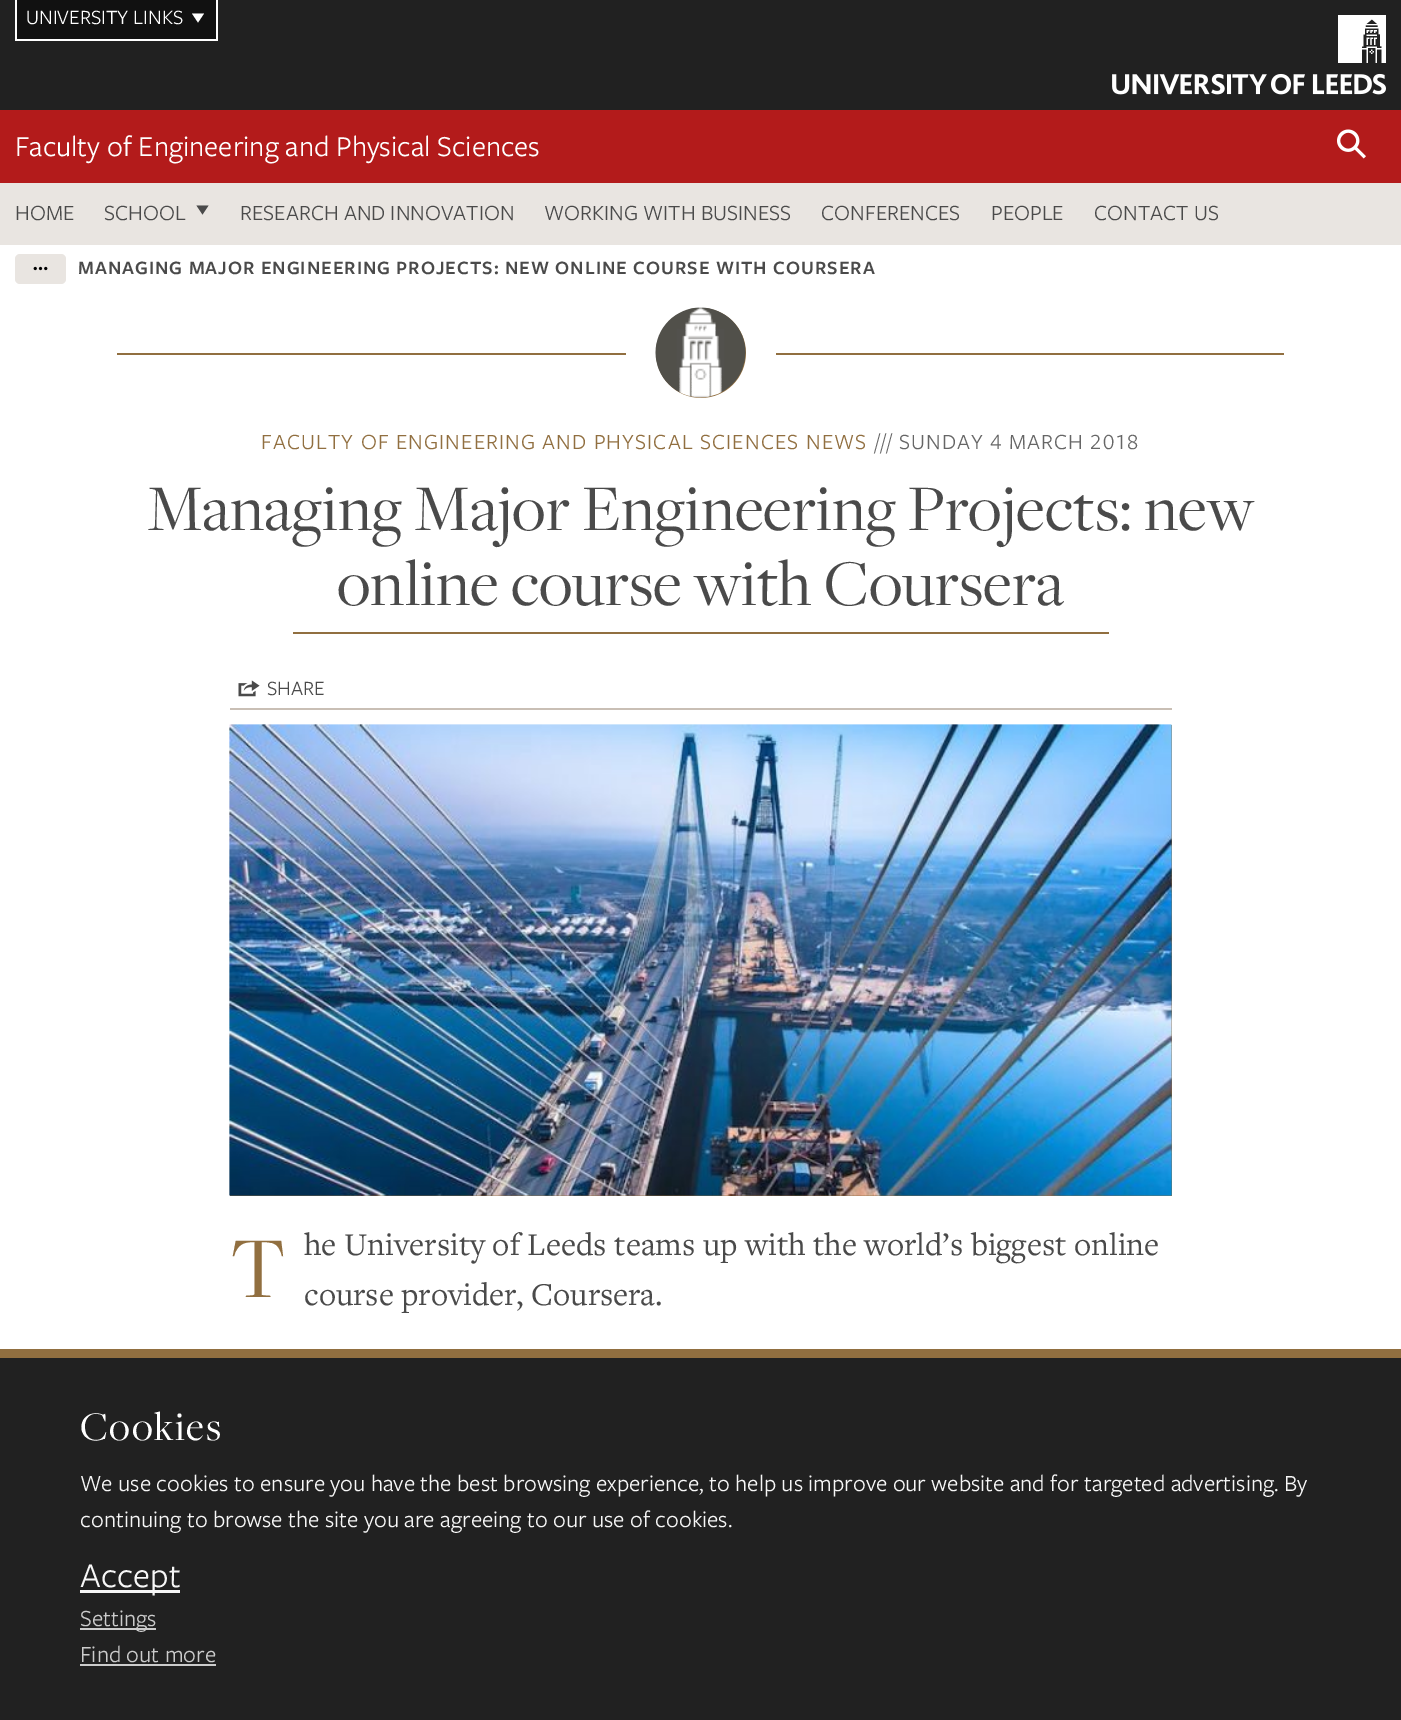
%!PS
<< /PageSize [1401 1720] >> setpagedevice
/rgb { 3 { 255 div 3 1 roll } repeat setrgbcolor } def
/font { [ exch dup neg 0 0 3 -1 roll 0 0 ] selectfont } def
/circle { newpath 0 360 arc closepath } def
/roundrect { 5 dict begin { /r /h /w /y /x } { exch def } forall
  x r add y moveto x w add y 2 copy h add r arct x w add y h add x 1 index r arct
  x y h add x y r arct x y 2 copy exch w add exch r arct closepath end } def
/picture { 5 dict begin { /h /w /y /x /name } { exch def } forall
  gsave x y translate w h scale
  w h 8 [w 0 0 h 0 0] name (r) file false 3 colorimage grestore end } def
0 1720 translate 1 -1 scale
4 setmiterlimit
255 255 255 rgb
0 0 1401 1720 rectfill
33 33 33 rgb
0 0 1401 110 rectfill
(img/1.rgb) 1112 15 274 80 picture
[
  [17 0 199 39 17 17 17]
  [216 0 2 41 255 255 255]
  [15 39 203 2 255 255 255]
  [15 0 2 41 255 255 255]
] { aload pop rgb rectfill } forall
204 13.5 moveto 198 22.5 lineto 192 13.5 lineto closepath fill
179 27 27 rgb
0 110 1401 73 rectfill
(img/2.rgb) 1337 129 29 30 picture
233 229 225 rgb
0 183 1401 62 rectfill
74 74 74 rgb
208.5 205.5 moveto 202.5 214.5 lineto 196.5 205.5 lineto closepath fill
233 229 225 rgb
15 254 51 30 5 roundrect fill
(img/3.rgb) 33 266 15 5 picture
145 111 64 rgb
117 353 509 2 rectfill
701 353 45 circle fill
(img/4.rgb) 655 307 91 91 picture
776 353 508 2 rectfill
293 632 816 2 rectfill
(img/5.rgb) 238 680 22 17 picture
201 191 181 rgb
230 708 942 2 rectfill
145 111 64 rgb
230 725 942 471 rectfill
(img/6.rgb) 229 724 943 472 picture
(img/7.rgb) 229 724 943 472 picture
[
  [0 1358 1401 362 33 33 33]
  [0 1349 1401 9 145 111 64]
  [80 1590 100 3 247 247 247]
  [80 1628 76 2 204 204 204]
  [80 1664 136 2 204 204 204]
] { aload pop rgb rectfill } forall
/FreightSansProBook-Regular 21 font
255 255 255 rgb
26 24 moveto (UNIVERSITY LINKS) show
/FreightSansProBook-Regular 30 font
15 156 moveto (Faculty of Engineering and Physical Sciences) show
/FreightSansProBook-Regular 22.5 font
74 74 74 rgb
[
  [(HOME) 15 220]
  [(SCHOOL) 104 220]
  [(RESEARCH AND INNOVATION) 240 220]
  [(WORKING WITH BUSINESS) 544 220]
  [(CONFERENCES) 821 220]
  [(PEOPLE) 991 220]
  [(CONTACT US) 1094 220]
] { aload pop moveto show } forall
/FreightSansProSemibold-SemiBold 19.5 font
78 274 moveto 0.98 0 (MANAGING MAJOR ENGINEERING PROJECTS: NEW ONLINE COURSE WITH COURSERA) ashow
/FreightSansProBook-Regular 22.5 font
145 111 64 rgb
261 449 moveto 1.1 0 (FACULTY OF ENGINEERING AND PHYSICAL SCIENCES NEWS) ashow
102 102 102 rgb
875 449 moveto 1.1 0 (///) ashow
/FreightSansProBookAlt-Regular 22.5 font
899 449 moveto 1.1 0 (SUNDAY 4 MARCH 2018) ashow
/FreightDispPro-Regular 67.5 font
74 74 74 rgb
147 530 moveto (Managing Major Engineering Projects: new) show
337 605 moveto (online course with Coursera) show
/FreightSansProBook-Regular 21 font
267 695 moveto (SHARE) show
/FreightDispPro-Regular 90 font
145 111 64 rgb
230 1297 moveto (T) show
/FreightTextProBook-Regular 33 font
74 74 74 rgb
304 1255 moveto (he University of Leeds teams up with the world’s biggest online) show
304 1305 moveto (course provider, Coursera.) show
/FreightDispPro-Regular 42 font
255 255 255 rgb
80 1440 moveto 1.5 0 (Cookies) ashow
/FreightSansProBook-Regular 24 font
247 247 247 rgb
80 1491 moveto (We use cookies to ensure you have the best browsing experience, to help us improve our website and for targeted advertising. By) show
80 1527 moveto (continuing to browse the site you are agreeing to our use of cookies.) show
/FreightSansProBook-Regular 36 font
80 1587 moveto (Accept) show
/FreightSansProBook-Regular 24 font
204 204 204 rgb
80 1626 moveto (Settings) show
80 1662 moveto (Find out more) show
showpage
